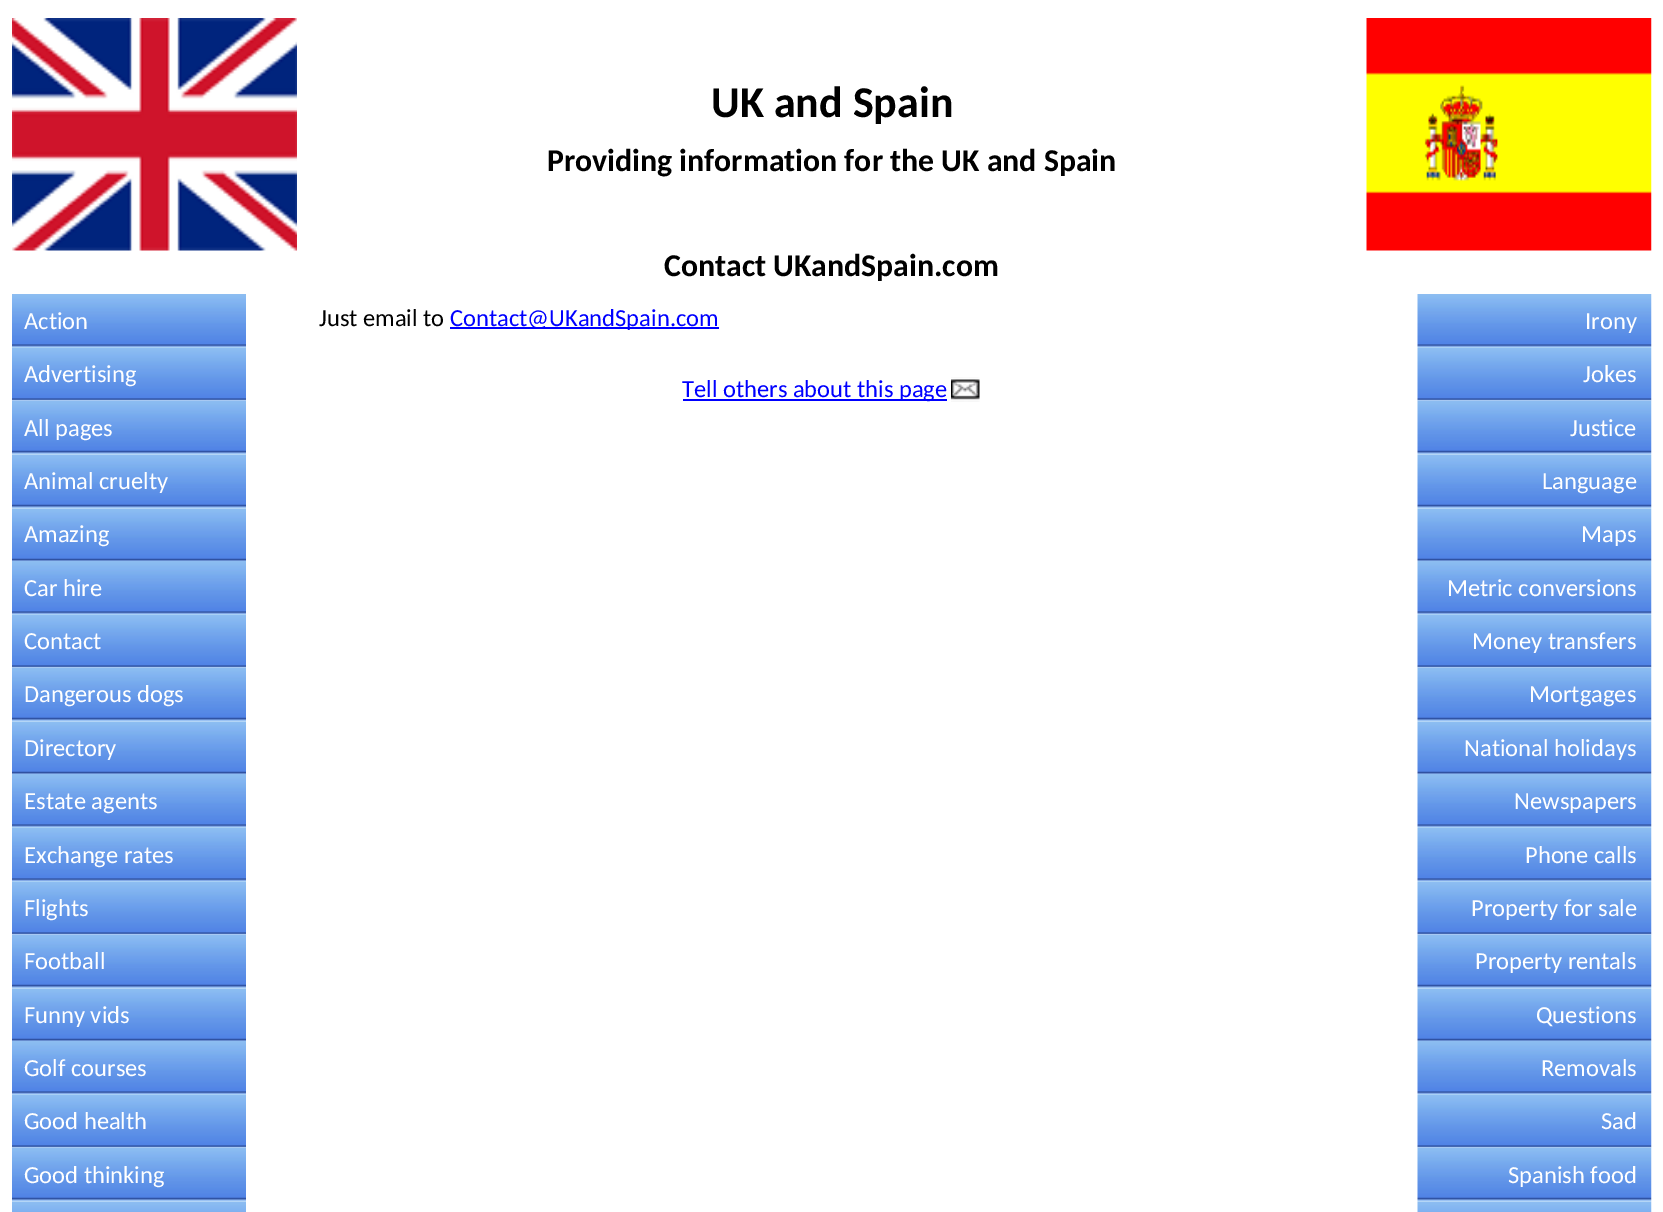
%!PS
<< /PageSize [1663 1212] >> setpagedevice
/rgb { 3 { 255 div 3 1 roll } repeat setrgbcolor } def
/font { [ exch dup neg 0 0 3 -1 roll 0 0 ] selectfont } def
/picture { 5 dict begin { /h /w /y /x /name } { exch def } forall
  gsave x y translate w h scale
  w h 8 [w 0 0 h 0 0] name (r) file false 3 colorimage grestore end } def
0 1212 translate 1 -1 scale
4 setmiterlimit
255 255 255 rgb
0 0 1663 1212 rectfill
(img/1.rgb) 12 18 285 233 picture
(img/2.rgb) 1366 18 286 233 picture
(img/3.rgb) 12 294 234 54 picture
(img/4.rgb) 12 348 234 53 picture
(img/5.rgb) 12 400 234 55 picture
(img/6.rgb) 12 454 234 55 picture
(img/7.rgb) 12 508 234 53 picture
(img/3.rgb) 12 561 234 54 picture
(img/4.rgb) 12 615 234 53 picture
(img/5.rgb) 12 667 234 55 picture
(img/7.rgb) 12 721 234 53 picture
(img/3.rgb) 12 774 234 54 picture
(img/3.rgb) 12 828 234 54 picture
(img/4.rgb) 12 882 234 53 picture
(img/5.rgb) 12 934 234 55 picture
(img/7.rgb) 12 988 234 53 picture
(img/3.rgb) 12 1041 234 54 picture
(img/4.rgb) 12 1095 234 53 picture
(img/5.rgb) 12 1147 234 55 picture
(img/8.rgb) 12 1201 234 11 picture
0 0 255 rgb
450 327 269 2 rectfill
683 399 264 2 rectfill
(img/9.rgb) 951 377 29 25 picture
(img/10.rgb) 1417 294 235 54 picture
(img/11.rgb) 1417 348 235 53 picture
(img/12.rgb) 1417 400 235 55 picture
(img/13.rgb) 1417 454 235 55 picture
(img/14.rgb) 1417 508 235 53 picture
(img/10.rgb) 1417 561 235 54 picture
(img/11.rgb) 1417 615 235 53 picture
(img/12.rgb) 1417 667 235 55 picture
(img/14.rgb) 1417 721 235 53 picture
(img/10.rgb) 1417 774 235 54 picture
(img/10.rgb) 1417 828 235 54 picture
(img/11.rgb) 1417 882 235 53 picture
(img/12.rgb) 1417 934 235 55 picture
(img/14.rgb) 1417 988 235 53 picture
(img/10.rgb) 1417 1041 235 54 picture
(img/11.rgb) 1417 1095 235 53 picture
(img/12.rgb) 1417 1147 235 55 picture
(img/15.rgb) 1417 1201 235 11 picture
/Carlito-Bold 44 font
0 0 0 rgb
711 117 moveto (UK and Spain) show
/Carlito-Bold 31.8 font
547 171 moveto (Providing information for the UK and Spain) show
664 276 moveto (Contact UKandSpain.com) show
/Carlito-Regular 24.5 font
255 255 255 rgb
[
  [(Action) 24 329]
  [(Advertising) 24 382]
  [(All pages) 24 436]
  [(Animal cruelty) 24 489]
  [(Amazing) 24 542]
  [(Car hire) 24 596]
  [(Contact) 24 649]
  [(Dangerous dogs) 24 702]
  [(Directory) 24 756]
  [(Estate agents) 24 809]
  [(Exchange rates) 24 863]
  [(Flights) 24 916]
  [(Football) 24 969]
  [(Funny vids) 24 1023]
  [(Golf courses) 24 1076]
  [(Good health) 24 1129]
  [(Good thinking) 24 1183]
] { aload pop moveto show } forall
0 0 0 rgb
319 326 moveto (Just email to) show
0 0 255 rgb
450 326 moveto (Contact@UKandSpain.com) show
682 397 moveto (Tell others about this page) show
255 255 255 rgb
[
  [(Irony) 1585 329]
  [(Jokes) 1583 382]
  [(Justice) 1570 436]
  [(Language) 1542 489]
  [(Maps) 1581 542]
  [(Metric conversions) 1447 596]
  [(Money transfers) 1472 649]
  [(Mortgages) 1529 702]
  [(National holidays) 1464 756]
  [(Newspapers) 1514 809]
  [(Phone calls) 1525 863]
  [(Property for sale) 1471 916]
  [(Property rentals) 1475 969]
  [(Questions) 1536 1023]
  [(Removals) 1541 1076]
  [(Sad) 1601 1129]
  [(Spanish food) 1508 1183]
] { aload pop moveto show } forall
showpage
